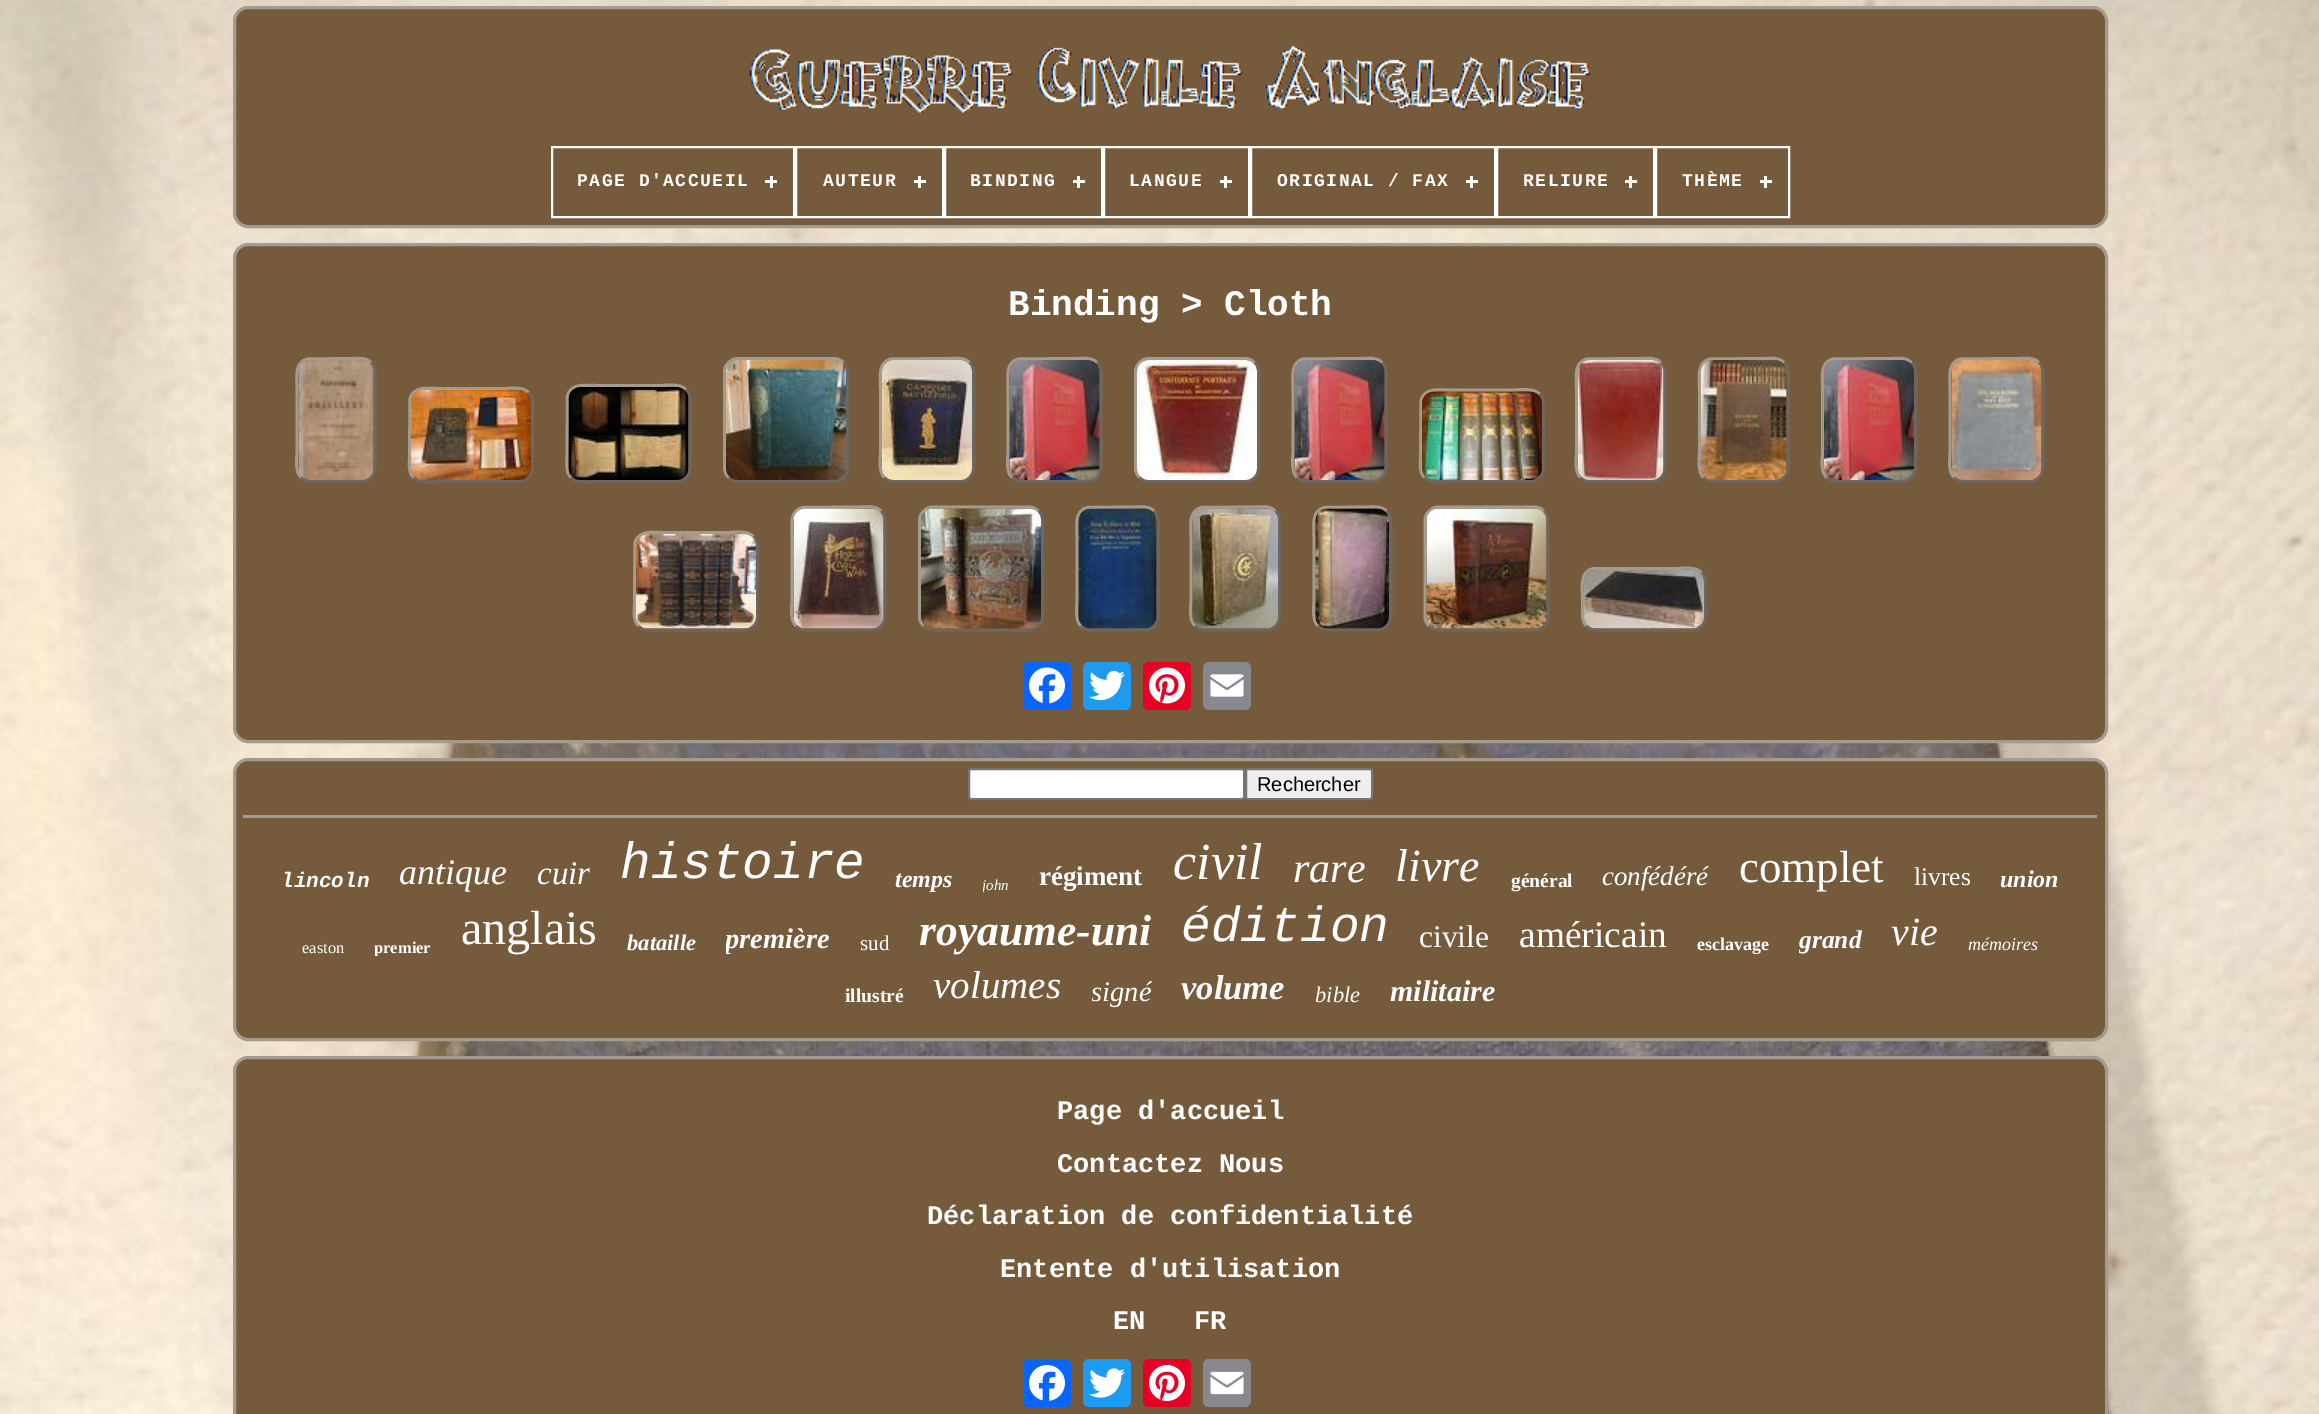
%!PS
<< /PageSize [2319 1414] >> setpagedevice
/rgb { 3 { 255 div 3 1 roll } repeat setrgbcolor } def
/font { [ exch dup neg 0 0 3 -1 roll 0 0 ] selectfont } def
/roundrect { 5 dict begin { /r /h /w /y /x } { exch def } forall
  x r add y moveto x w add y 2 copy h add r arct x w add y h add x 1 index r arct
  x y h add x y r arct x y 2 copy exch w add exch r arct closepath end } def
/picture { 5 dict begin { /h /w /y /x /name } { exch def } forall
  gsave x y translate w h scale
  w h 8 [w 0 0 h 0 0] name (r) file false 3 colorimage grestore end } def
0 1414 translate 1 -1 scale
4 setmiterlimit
255 255 255 rgb
0 0 2319 1414 rectfill
(img/1.rgb) 0 0 2319 1414 picture
117 90 60 rgb
234.5 7.5 1872 219 13.5 roundrect gsave fill grestore
163 155 142 rgb
3 setlinewidth
stroke
(img/2.rgb) 749 44 842 69 picture
255 255 255 rgb
2 setlinewidth
552 147 242 70 rectstroke
770 176 3 12 rectfill
765 180 12 3 rectfill
796 147 147 70 rectstroke
918 176 3 12 rectfill
914 180 12 3 rectfill
945 147 157 70 rectstroke
1077 176 3 12 rectfill
1073 180 12 3 rectfill
1104 147 145 70 rectstroke
1224 176 3 12 rectfill
1220 180 12 3 rectfill
1251 147 244 70 rectstroke
1470 176 3 12 rectfill
1466 180 12 3 rectfill
1497 147 157 70 rectstroke
1629 176 3 12 rectfill
1625 180 12 3 rectfill
1656 147 133 70 rectstroke
1764 176 3 12 rectfill
1760 180 12 3 rectfill
117 90 60 rgb
234.5 244.5 1872 497 13.5 roundrect gsave fill grestore
163 155 142 rgb
3 setlinewidth
stroke
109 103 95 rgb
371 362.5 moveto 377.5 369 375 380.5 375 388 curveto 375 452 lineto 375 462 378 478.5 364 481 curveto 319 481.5 lineto 312.5 481.5 306 482.5 301 477.5 curveto stroke
163 155 142 rgb
301 477.5 moveto 294.5 471 297 459.5 297 452 curveto 297 388 lineto 297 378 294 361.5 308 359 curveto 353 358.5 lineto 359.5 358.5 366 357.5 371 362.5 curveto stroke
(img/3.rgb) 298 360 76 120 picture
109 103 95 rgb
528.5 392.5 moveto 534 398 532.5 406 532.5 413 curveto 532 470.5 lineto 529.5 484.5 513 481.5 503 481.5 curveto 439 481.5 lineto 431.5 481.5 420 484 413.5 477.5 curveto stroke
163 155 142 rgb
413.5 477.5 moveto 408 472 409.5 464 409.5 457 curveto 410 399.5 lineto 412.5 385.5 429 388.5 439 388.5 curveto 503 388.5 lineto 510.5 388.5 522 386 528.5 392.5 curveto stroke
(img/4.rgb) 411 390 120 90 picture
109 103 95 rgb
686 389.5 moveto 691.5 395 690 403.5 690 410.5 curveto 689.5 470.5 lineto 687 484.5 670.5 481.5 660.5 481.5 curveto 596.5 481.5 lineto 589 481.5 577.5 484 571 477.5 curveto stroke
163 155 142 rgb
571 477.5 moveto 565.5 472 567 463.5 567 456.5 curveto 567.5 396.5 lineto 570 382.5 586.5 385.5 596.5 385.5 curveto 660.5 385.5 lineto 668 385.5 679.5 383 686 389.5 curveto stroke
(img/5.rgb) 568 387 121 93 picture
109 103 95 rgb
843.5 362.5 moveto 846 365 847.5 368.5 847.5 372 curveto 847.5 468 lineto 847.5 471.5 846 475 843.5 477.5 curveto 841 480 837.5 481.5 834 481.5 curveto 738 481.5 lineto 734.5 481.5 731 480 728.5 477.5 curveto stroke
163 155 142 rgb
728.5 477.5 moveto 726 475 724.5 471.5 724.5 468 curveto 724.5 372 lineto 724.5 368.5 726 365 728.5 362.5 curveto 731 360 734.5 358.5 738 358.5 curveto 834 358.5 lineto 837.5 358.5 841 360 843.5 362.5 curveto stroke
(img/6.rgb) 726 360 120 120 picture
109 103 95 rgb
969.5 362.5 moveto 976 369 973.5 380.5 973.5 388 curveto 973.5 452 lineto 973.5 462 976.5 478.5 962.5 481 curveto 905 481.5 lineto 898 481.5 890 483 884.5 477.5 curveto stroke
163 155 142 rgb
884.5 477.5 moveto 878 471 880.5 459.5 880.5 452 curveto 880.5 388 lineto 880.5 378 877.5 361.5 891.5 359 curveto 949 358.5 lineto 956 358.5 964 357 969.5 362.5 curveto stroke
(img/7.rgb) 882 360 90 120 picture
109 103 95 rgb
1097 362.5 moveto 1103.5 369 1101 380.5 1101 388 curveto 1101 452 lineto 1101 462 1104 478.5 1090 481 curveto 1032.5 481.5 lineto 1025.5 481.5 1017.5 483 1012 477.5 curveto stroke
163 155 142 rgb
1012 477.5 moveto 1005.5 471 1008 459.5 1008 452 curveto 1008 388 lineto 1008 378 1005 361.5 1019 359 curveto 1076.5 358.5 lineto 1083.5 358.5 1091.5 357 1097 362.5 curveto stroke
(img/8.rgb) 1009 360 91 120 picture
109 103 95 rgb
1254.5 362.5 moveto 1257 365 1258.5 368.5 1258.5 372 curveto 1258.5 468 lineto 1258.5 471.5 1257 475 1254.5 477.5 curveto 1252 480 1248.5 481.5 1245 481.5 curveto 1149 481.5 lineto 1145.5 481.5 1142 480 1139.5 477.5 curveto stroke
163 155 142 rgb
1139.5 477.5 moveto 1137 475 1135.5 471.5 1135.5 468 curveto 1135.5 372 lineto 1135.5 368.5 1137 365 1139.5 362.5 curveto 1142 360 1145.5 358.5 1149 358.5 curveto 1245 358.5 lineto 1248.5 358.5 1252 360 1254.5 362.5 curveto stroke
(img/9.rgb) 1137 360 120 120 picture
109 103 95 rgb
1382 362.5 moveto 1388.5 369 1386 380.5 1386 388 curveto 1386 452 lineto 1386 462 1389 478.5 1375 481 curveto 1317.5 481.5 lineto 1310.5 481.5 1302.5 483 1297 477.5 curveto stroke
163 155 142 rgb
1297 477.5 moveto 1290.5 471 1293 459.5 1293 452 curveto 1293 388 lineto 1293 378 1290 361.5 1304 359 curveto 1361.5 358.5 lineto 1368.5 358.5 1376.5 357 1382 362.5 curveto stroke
(img/10.rgb) 1294 360 91 120 picture
109 103 95 rgb
1539.5 394 moveto 1545 399.5 1543.5 407.5 1543.5 414 curveto 1543 470.5 lineto 1540.5 484.5 1524 481.5 1514 481.5 curveto 1450 481.5 lineto 1442.5 481.5 1431 484 1424.5 477.5 curveto stroke
163 155 142 rgb
1424.5 477.5 moveto 1419 472 1420.5 464 1420.5 457 curveto 1421 401 lineto 1423.5 387 1440 390 1450 390 curveto 1514 390 lineto 1521.5 390 1533 387.5 1539.5 394 curveto stroke
(img/11.rgb) 1422 391 120 89 picture
109 103 95 rgb
1661 362.5 moveto 1667.5 369 1665 380.5 1665 388 curveto 1665 452 lineto 1665 462 1668 478.5 1654 481 curveto 1600 481.5 lineto 1593.5 481.5 1586 483 1580.5 477.5 curveto stroke
163 155 142 rgb
1580.5 477.5 moveto 1574 471 1576.5 459.5 1576.5 452 curveto 1576.5 388 lineto 1576.5 378 1573.5 361.5 1587.5 359 curveto 1641 358.5 lineto 1648 358.5 1655.5 357 1661 362.5 curveto stroke
(img/12.rgb) 1578 360 86 120 picture
109 103 95 rgb
1784 362.5 moveto 1790.5 369 1788 380.5 1788 388 curveto 1788 452 lineto 1788 462 1791 478.5 1777 481 curveto 1723 481.5 lineto 1716.5 481.5 1709 483 1703.5 477.5 curveto stroke
163 155 142 rgb
1703.5 477.5 moveto 1697 471 1699.5 459.5 1699.5 452 curveto 1699.5 388 lineto 1699.5 378 1696.5 361.5 1710.5 359 curveto 1764 358.5 lineto 1771 358.5 1778.5 357 1784 362.5 curveto stroke
(img/13.rgb) 1701 360 86 120 picture
109 103 95 rgb
1911.5 362.5 moveto 1918 369 1915.5 380.5 1915.5 388 curveto 1915.5 452 lineto 1915.5 462 1918.5 478.5 1904.5 481 curveto 1847 481.5 lineto 1840 481.5 1832 483 1826.5 477.5 curveto stroke
163 155 142 rgb
1826.5 477.5 moveto 1820 471 1822.5 459.5 1822.5 452 curveto 1822.5 388 lineto 1822.5 378 1819.5 361.5 1833.5 359 curveto 1891 358.5 lineto 1898 358.5 1906 357 1911.5 362.5 curveto stroke
(img/14.rgb) 1824 360 90 120 picture
109 103 95 rgb
2039 362.5 moveto 2045.5 369 2043 380.5 2043 388 curveto 2043 452 lineto 2043 462 2046 478.5 2032 481 curveto 1974.5 481.5 lineto 1967.5 481.5 1959.5 483 1954 477.5 curveto stroke
163 155 142 rgb
1954 477.5 moveto 1947.5 471 1950 459.5 1950 452 curveto 1950 388 lineto 1950 378 1947 361.5 1961 359 curveto 2018.5 358.5 lineto 2025.5 358.5 2033.5 357 2039 362.5 curveto stroke
(img/15.rgb) 1951 360 91 120 picture
109 103 95 rgb
753.5 536.5 moveto 759 542 757.5 550.5 757.5 558 curveto 757 619 lineto 754.5 633 738 630 728 630 curveto 664 630 lineto 656.5 630 645 632.5 638.5 626 curveto stroke
163 155 142 rgb
638.5 626 moveto 633 620.5 634.5 612 634.5 605 curveto 635 543.5 lineto 637.5 529.5 654 532.5 664 532.5 curveto 728 532.5 lineto 735.5 532.5 747 530 753.5 536.5 curveto stroke
(img/16.rgb) 636 534 120 95 picture
109 103 95 rgb
881 511 moveto 887.5 517.5 885 529 885 536.5 curveto 885 600.5 lineto 885 610.5 888 627 874 629.5 curveto 816.5 630 lineto 809.5 630 801.5 631.5 796 626 curveto stroke
163 155 142 rgb
796 626 moveto 789.5 619.5 792 608 792 600.5 curveto 792 536.5 lineto 792 526.5 789 510 803 507.5 curveto 860.5 507 lineto 867.5 507 875.5 505.5 881 511 curveto stroke
(img/17.rgb) 793 508 91 121 picture
109 103 95 rgb
1038.5 511 moveto 1041 513.5 1042.5 517 1042.5 520.5 curveto 1042.5 616.5 lineto 1042.5 620 1041 623.5 1038.5 626 curveto 1036 628.5 1032.5 630 1029 630 curveto 933 630 lineto 929.5 630 926 628.5 923.5 626 curveto stroke
163 155 142 rgb
923.5 626 moveto 921 623.5 919.5 620 919.5 616.5 curveto 919.5 520.5 lineto 919.5 517 921 513.5 923.5 511 curveto 926 508.5 929.5 507 933 507 curveto 1029 507 lineto 1032.5 507 1036 508.5 1038.5 511 curveto stroke
(img/18.rgb) 921 508 120 121 picture
109 103 95 rgb
1154 511 moveto 1160.5 517.5 1158 529 1158 536.5 curveto 1158 600.5 lineto 1158 610.5 1161 627 1147 629.5 curveto 1099.5 630 lineto 1093 630 1086 631 1081 626 curveto stroke
163 155 142 rgb
1081 626 moveto 1074.5 619.5 1077 608 1077 600.5 curveto 1077 536.5 lineto 1077 526.5 1074 510 1088 507.5 curveto 1135.5 507 lineto 1142 507 1149 506 1154 511 curveto stroke
(img/19.rgb) 1078 508 79 121 picture
109 103 95 rgb
1275.5 511 moveto 1282 517.5 1279.5 529 1279.5 536.5 curveto 1279.5 600.5 lineto 1279.5 610.5 1282.5 627 1268.5 629.5 curveto 1215 630 lineto 1208 630 1200.5 631.5 1195 626 curveto stroke
163 155 142 rgb
1195 626 moveto 1188.5 619.5 1191 608 1191 600.5 curveto 1191 536.5 lineto 1191 526.5 1188 510 1202 507.5 curveto 1256 507 lineto 1262.5 507 1270 505.5 1275.5 511 curveto stroke
(img/20.rgb) 1192 508 86 121 picture
109 103 95 rgb
1386.5 511 moveto 1393 517.5 1390.5 529 1390.5 536.5 curveto 1390.5 600.5 lineto 1390.5 610.5 1393.5 627 1379.5 629.5 curveto 1336 630 lineto 1329.5 630 1323 631 1318 626 curveto stroke
163 155 142 rgb
1318 626 moveto 1311.5 619.5 1314 608 1314 600.5 curveto 1314 536.5 lineto 1314 526.5 1311 510 1325 507.5 curveto 1369 507 lineto 1375 507 1381.5 506 1386.5 511 curveto stroke
(img/21.rgb) 1315 508 74 121 picture
109 103 95 rgb
1544 511 moveto 1546.5 513.5 1548 517 1548 520.5 curveto 1548 616.5 lineto 1548 620 1546.5 623.5 1544 626 curveto 1541.5 628.5 1538 630 1534.5 630 curveto 1438.5 630 lineto 1435 630 1431.5 628.5 1429 626 curveto stroke
163 155 142 rgb
1429 626 moveto 1426.5 623.5 1425 620 1425 616.5 curveto 1425 520.5 lineto 1425 517 1426.5 513.5 1429 511 curveto 1431.5 508.5 1435 507 1438.5 507 curveto 1534.5 507 lineto 1538 507 1541.5 508.5 1544 511 curveto stroke
(img/22.rgb) 1426 508 121 121 picture
109 103 95 rgb
1701.5 572.5 moveto 1706 577 1705.5 582 1705.5 588 curveto 1705.5 599 lineto 1705.5 610 1709 628.5 1693.5 630 curveto 1612 630 lineto 1604.5 630 1593 632.5 1586.5 626 curveto stroke
163 155 142 rgb
1586.5 626 moveto 1582 621.5 1582.5 616.5 1582.5 611 curveto 1582.5 599 lineto 1582.5 588.5 1579 570 1594.5 568.5 curveto 1676 568.5 lineto 1683.5 568.5 1695 566 1701.5 572.5 curveto stroke
(img/23.rgb) 1584 570 120 59 picture
8 102 255 rgb
1023 662 48 48 6 roundrect fill
(img/24.rgb) 1029 667 36 37 picture
29 155 240 rgb
1083 662 48 48 6 roundrect fill
(img/25.rgb) 1089 670 36 31 picture
230 0 35 rgb
1143 662 48 48 6 roundrect fill
(img/26.rgb) 1149 667 36 37 picture
136 137 144 rgb
1203 662 48 48 6 roundrect fill
(img/27.rgb) 1210 674 34 23 picture
117 90 60 rgb
234.5 759.5 1872 280 13.5 roundrect gsave fill grestore
163 155 142 rgb
stroke
255 255 255 rgb
969 769 275 30 2 roundrect gsave fill grestore
118 118 118 rgb
2 setlinewidth
stroke
239 239 239 rgb
1246 769 126 30 2 roundrect gsave fill grestore
118 118 118 rgb
stroke
163 155 142 rgb
243 815 1854 3 rectfill
117 90 60 rgb
234.5 1057.5 1872 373 13.5 roundrect gsave fill grestore
163 155 142 rgb
3 setlinewidth
stroke
8 102 255 rgb
1023 1359 48 48 6 roundrect fill
(img/28.rgb) 1029 1365 36 36 picture
29 155 240 rgb
1083 1359 48 48 6 roundrect fill
(img/29.rgb) 1089 1368 36 30 picture
230 0 35 rgb
1143 1359 48 48 6 roundrect fill
(img/30.rgb) 1149 1365 36 36 picture
136 137 144 rgb
1203 1359 48 48 6 roundrect fill
(img/31.rgb) 1210 1371 34 24 picture
/LiberationMono-Bold 18 font
255 255 255 rgb
577 186 moveto 1.5 0 (PAGE D'ACCUEIL) ashow
823 186 moveto 1.5 0 (AUTEUR) ashow
970 186 moveto 1.5 0 (BINDING) ashow
1129 186 moveto 1.5 0 (LANGUE) ashow
1277 186 moveto 1.5 0 (ORIGINAL / FAX) ashow
1523 186 moveto 1.5 0 (RELIURE) ashow
1682 186 moveto 1.5 0 (THÈME) ashow
/LiberationMono-Bold 36 font
1008 315 moveto (Binding > Cloth) show
/LiberationSans-Regular 20 font
0 0 0 rgb
1257 791 moveto (Rechercher) show
/LiberationMono-BoldItalic 21 font
255 255 255 rgb
281 887 moveto (lincoln) show
/LiberationSerif-Italic 36 font
399 884 moveto (antique) show
/LiberationSerif-Italic 33 font
537 884 moveto (cuir) show
/LiberationMono-Italic 51 font
620 878 moveto (histoire) show
/LiberationSerif-BoldItalic 24 font
895 887 moveto (temps) show
gsave
983 876 27 17 rectclip
/LiberationSerif-Italic 15 font
982 890 moveto (john) show
grestore
/LiberationSerif-Bold 27 font
1039 885 moveto (régiment) show
/LiberationSerif-Italic 52 font
1173 879 moveto (civil) show
/LiberationSerif-Italic 42 font
1293 882 moveto (rare) show
/LiberationSerif-Italic 46 font
1395 881 moveto (livre) show
/LiberationSerif-Bold 19.5 font
1511 887 moveto (général) show
/LiberationSerif-Italic 27 font
1602 885 moveto (confédéré) show
/LiberationSerif-Regular 45 font
1739 882 moveto (complet) show
/LiberationSerif-Regular 25.5 font
1914 885 moveto (livres) show
/LiberationSerif-BoldItalic 24 font
2000 887 moveto (union) show
/LiberationSerif-Regular 16.5 font
302 953 moveto (easton) show
gsave
374 938 57 18 rectclip
/LiberationSerif-Bold 16.5 font
374 953 moveto (premier) show
grestore
/LiberationSerif-Regular 48 font
461 944 moveto (anglais) show
/LiberationSerif-BoldItalic 22.5 font
627 950 moveto (bataille) show
gsave
726 923 104 33 rectclip
/LiberationSerif-BoldItalic 28.5 font
725 948 moveto (première) show
grestore
/LiberationSerif-Regular 21 font
860 950 moveto (sud) show
/LiberationSerif-BoldItalic 43.5 font
919 945 moveto (royaume-uni) show
/LiberationMono-Italic 49.5 font
1181 941 moveto (édition) show
/LiberationSerif-Regular 31.5 font
1419 947 moveto (civile) show
/LiberationSerif-Regular 37.5 font
1519 947 moveto (américain) show
/LiberationSerif-Bold 18 font
1697 950 moveto (esclavage) show
gsave
1799 926 63 30 rectclip
/LiberationSerif-BoldItalic 25.5 font
1799 948 moveto (grand) show
grestore
/LiberationSerif-Italic 40 font
1891 945 moveto (vie) show
/LiberationSerif-Italic 18 font
1968 950 moveto (mémoires) show
/LiberationSerif-Bold 19.5 font
845 1002 moveto (illustré) show
/LiberationSerif-Italic 39 font
933 998 moveto (volumes) show
gsave
1092 975 60 33 rectclip
/LiberationSerif-Italic 28.5 font
1091 1001 moveto (signé) show
grestore
/LiberationSerif-BoldItalic 34.5 font
1181 999 moveto (volume) show
/LiberationSerif-Italic 22.5 font
1315 1002 moveto (bible) show
/LiberationSerif-BoldItalic 30 font
1390 1001 moveto (militaire) show
/LiberationMono-Bold 27 font
[
  [(Page d'accueil) 1057 1119]
  [(Contactez Nous) 1057 1172]
  [(Déclaration de confidentialité) 927 1224]
  [(Entente d'utilisation) 1000 1277]
  [(EN) 1113 1329]
  [(FR) 1194 1329]
] { aload pop moveto show } forall
showpage
